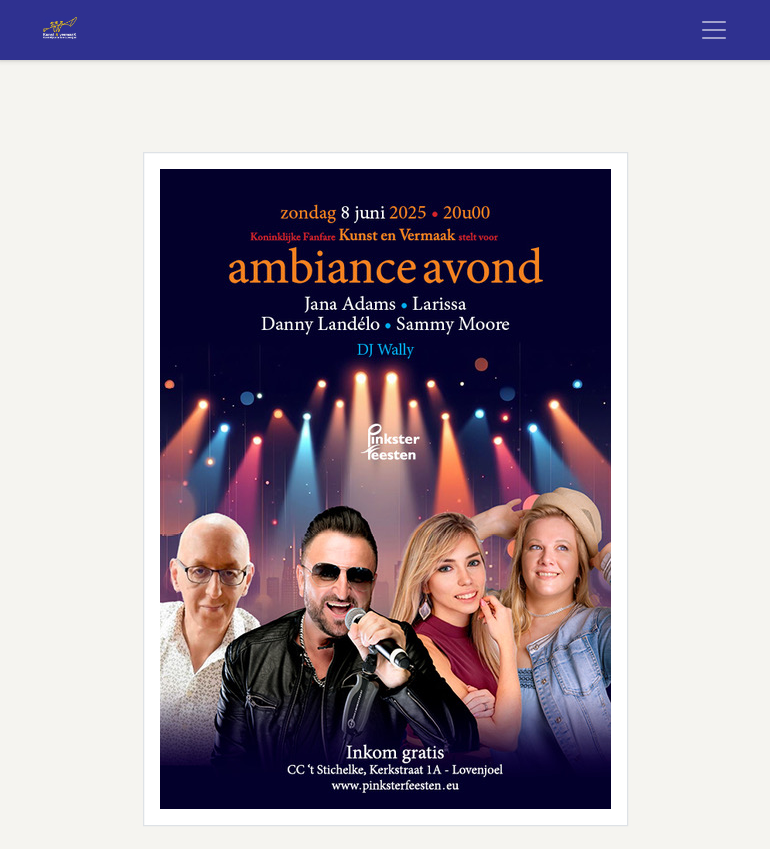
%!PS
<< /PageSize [770 849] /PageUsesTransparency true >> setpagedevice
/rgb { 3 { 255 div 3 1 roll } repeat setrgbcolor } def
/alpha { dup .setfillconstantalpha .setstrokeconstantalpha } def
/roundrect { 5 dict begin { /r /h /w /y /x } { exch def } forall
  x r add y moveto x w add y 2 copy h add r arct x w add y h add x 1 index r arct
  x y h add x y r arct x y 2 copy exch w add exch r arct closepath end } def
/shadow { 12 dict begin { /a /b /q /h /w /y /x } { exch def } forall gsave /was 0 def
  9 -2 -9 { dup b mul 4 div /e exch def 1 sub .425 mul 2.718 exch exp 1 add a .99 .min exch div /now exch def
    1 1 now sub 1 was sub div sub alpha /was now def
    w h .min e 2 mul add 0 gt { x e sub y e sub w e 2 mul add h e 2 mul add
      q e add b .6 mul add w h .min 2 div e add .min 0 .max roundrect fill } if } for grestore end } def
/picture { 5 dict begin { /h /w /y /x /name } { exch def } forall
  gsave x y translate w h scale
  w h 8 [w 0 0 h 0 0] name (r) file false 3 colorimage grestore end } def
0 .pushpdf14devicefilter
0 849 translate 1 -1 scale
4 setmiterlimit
245 244 240 rgb
0 0 770 849 rectfill
0 0 0 rgb
0 0 770 60 0 2.5 0.25 shadow
47 49 144 rgb
0 0 770 60 rectfill
(img/1.rgb) 43 17 34 22 picture
(img/2.rgb) 702 21 24 18 picture
255 255 255 rgb
143.5 152.5 moveto 627.5 152.5 lineto 627.5 825.5 lineto 143.5 825.5 lineto closepath gsave fill grestore
222 226 230 rgb
stroke
(img/3.rgb) 160 169 451 640 picture
.poppdf14devicefilter showpage
